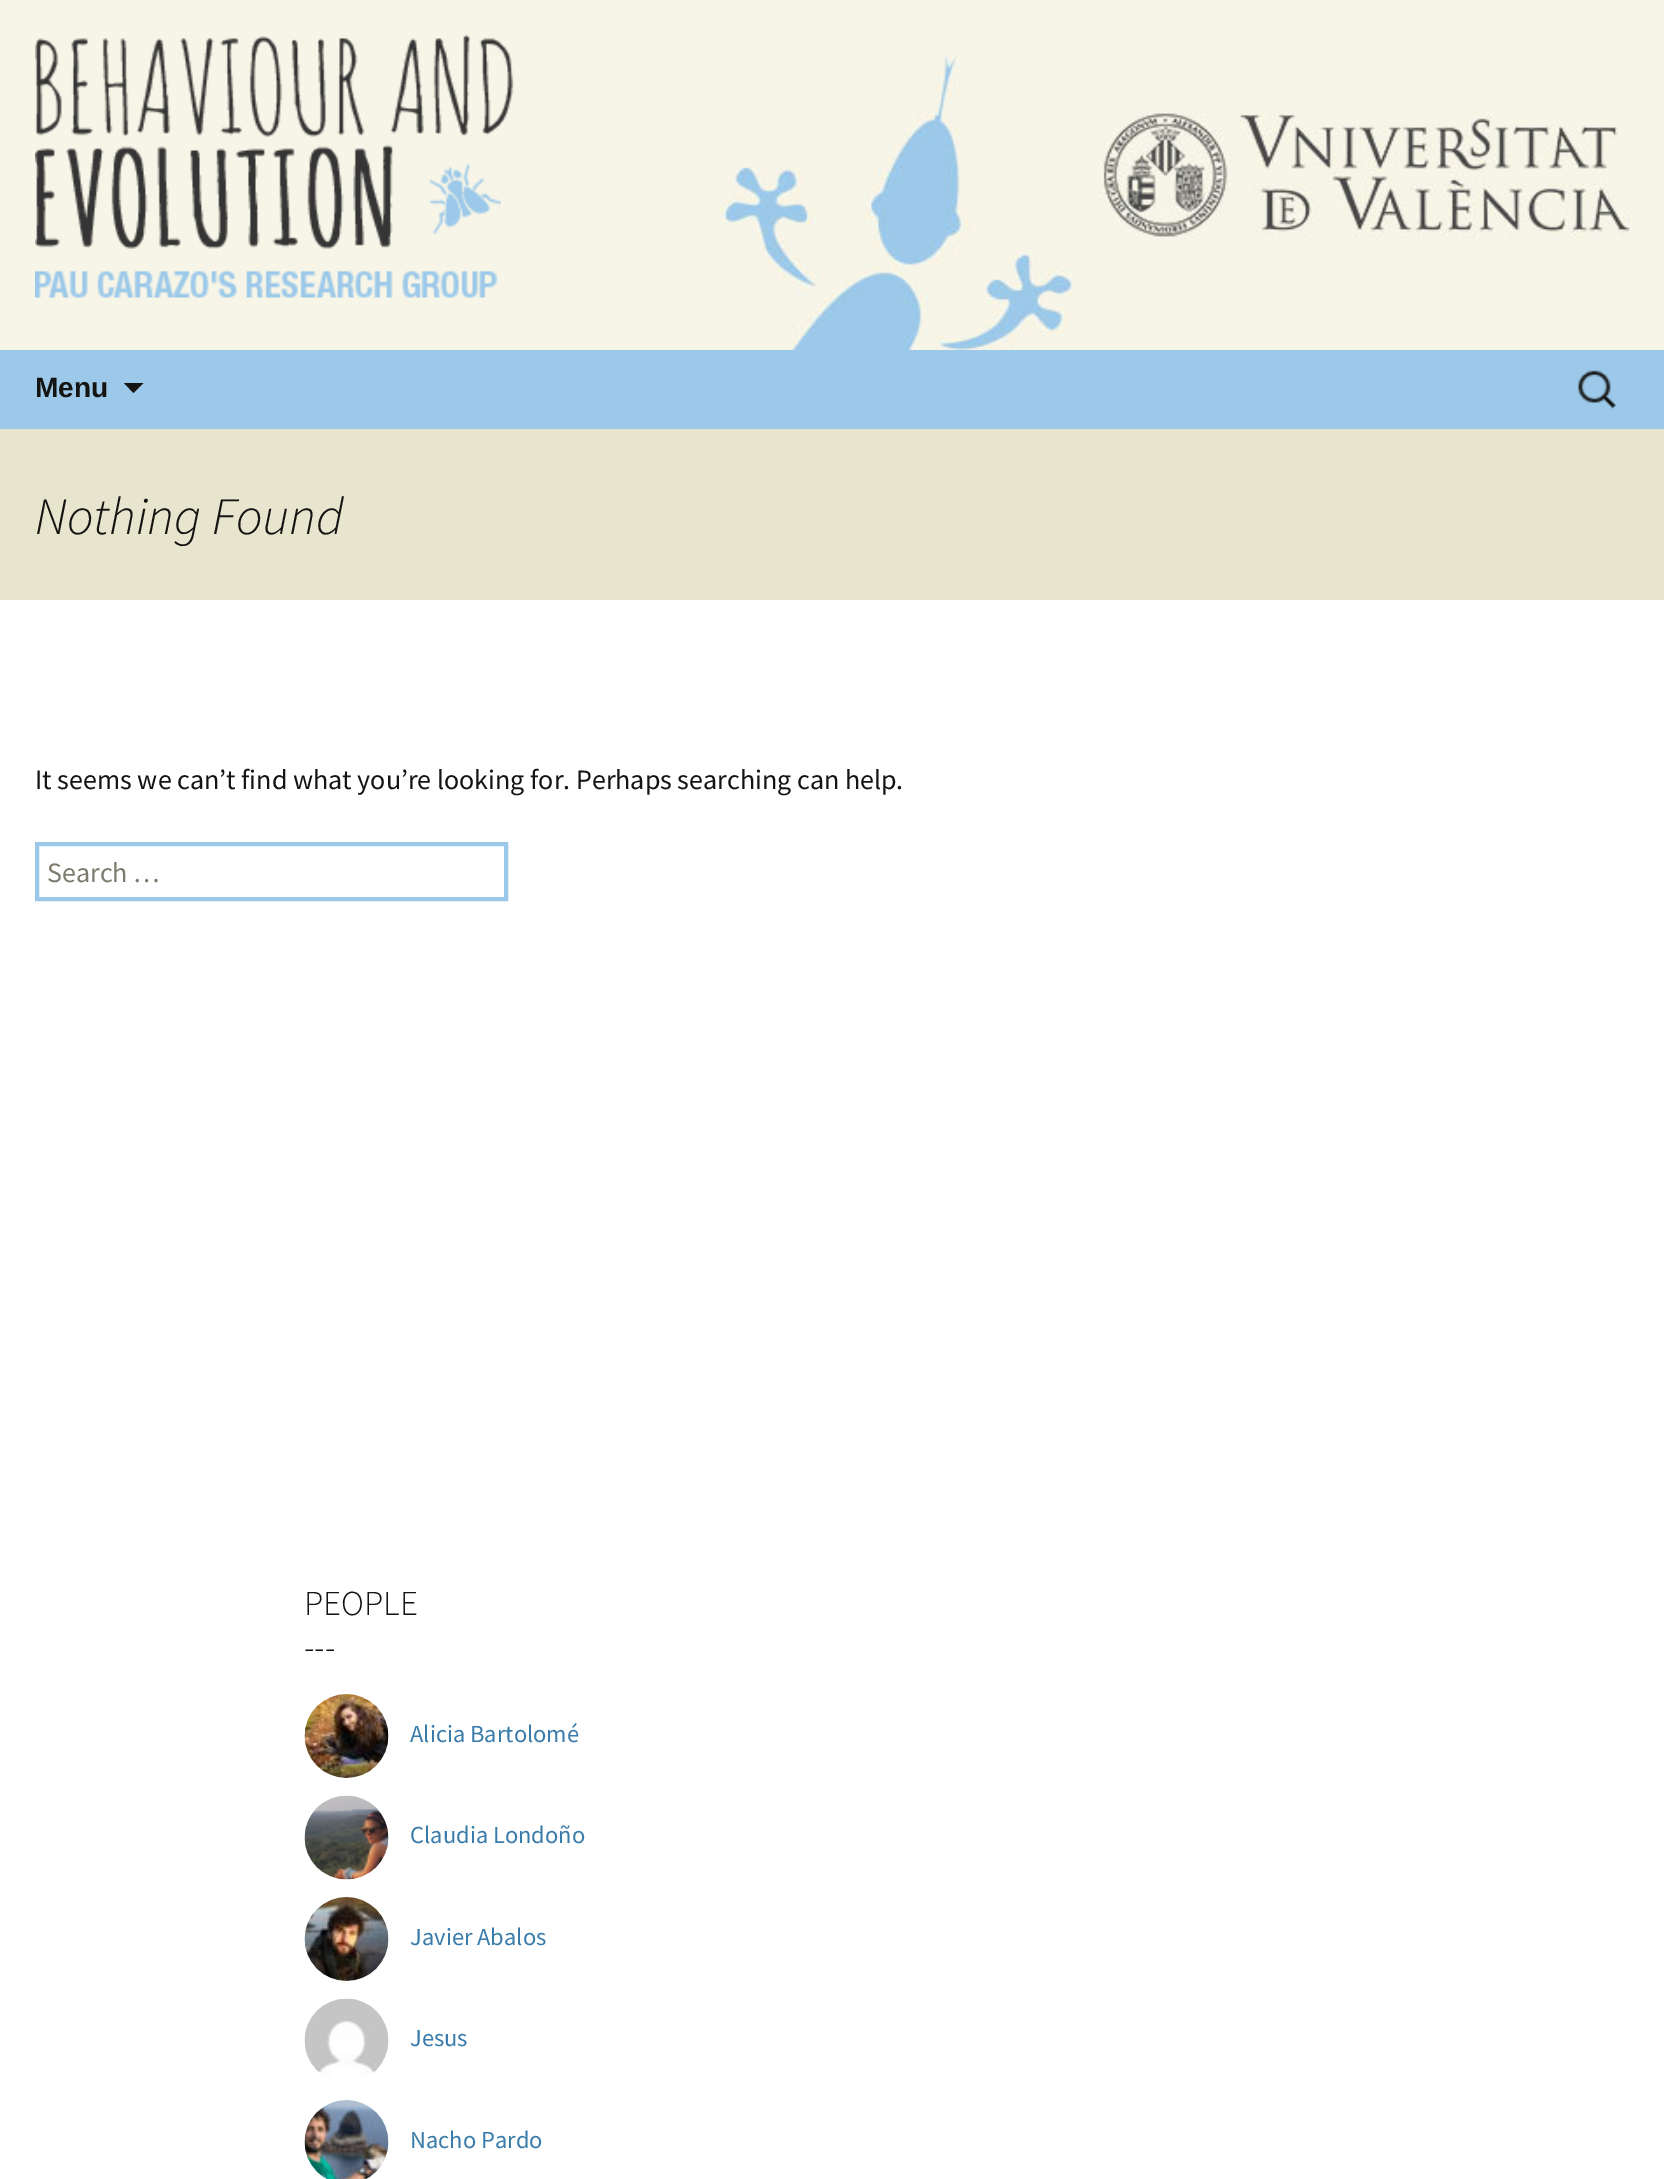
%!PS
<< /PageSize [1664 2179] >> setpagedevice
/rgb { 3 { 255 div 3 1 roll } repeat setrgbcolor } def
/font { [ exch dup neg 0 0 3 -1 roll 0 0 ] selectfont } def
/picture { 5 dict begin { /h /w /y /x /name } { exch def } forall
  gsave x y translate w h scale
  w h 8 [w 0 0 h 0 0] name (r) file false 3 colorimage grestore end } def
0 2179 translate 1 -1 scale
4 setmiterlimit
255 255 255 rgb
0 0 1664 2179 rectfill
247 245 231 rgb
0 0 1664 350 rectfill
(img/1.rgb) 35 35 479 263 picture
(img/2.rgb) 721 55 909 295 picture
156 201 233 rgb
0 350 1664 79 rectfill
20 20 18 rgb
124 383 moveto 133.5 393 lineto 143.5 383 lineto closepath fill
(img/3.rgb) 1577 370 39 39 picture
232 229 206 rgb
0 429 1664 171 rectfill
156 201 233 rgb
4 setlinewidth
37 844 469 55 rectstroke
(img/4.rgb) 304 1694 85 84 picture
(img/5.rgb) 304 1795 85 85 picture
(img/6.rgb) 304 1897 85 84 picture
(img/7.rgb) 304 1998 85 79 picture
(img/8.rgb) 304 2100 85 79 picture
/LiberationSans-Bold 28 font
20 20 18 rgb
35 397 moveto (Menu) show
/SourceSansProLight-LightItalic 52.5 font
35 534 moveto (Nothing Found) show
/SourceSansPro-Regular 28 font
35 789 moveto (It seems we can’t find what you’re looking for. Perhaps searching can help.) show
125 123 109 rgb
47 882 moveto (Search …) show
/SourceSansProLight-Light 35 font
20 20 18 rgb
304 1615 moveto (PEOPLE) show
304 1659 moveto (---) show
/SourceSansPro-Regular 24.5 font
57 123 170 rgb
[
  [(Alicia Bartolomé) 410 1742]
  [(Claudia Londoño) 410 1843]
  [(Javier Abalos) 410 1945]
  [(Jesus) 410 2046]
  [(Nacho Pardo) 410 2148]
] { aload pop moveto show } forall
showpage
